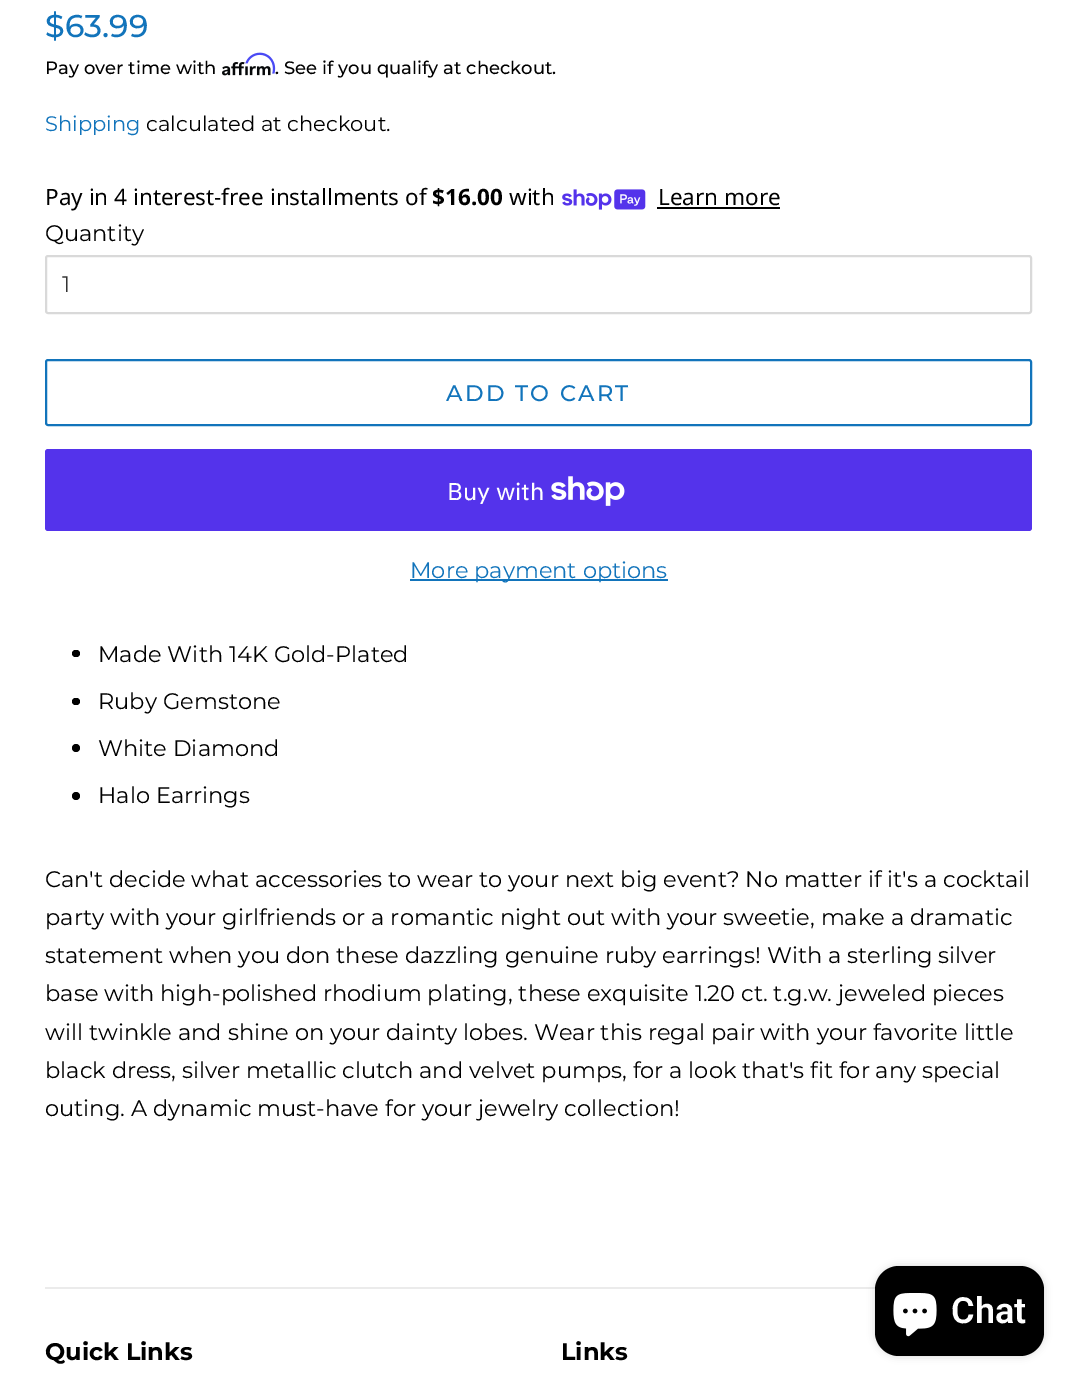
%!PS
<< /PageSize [1076 1387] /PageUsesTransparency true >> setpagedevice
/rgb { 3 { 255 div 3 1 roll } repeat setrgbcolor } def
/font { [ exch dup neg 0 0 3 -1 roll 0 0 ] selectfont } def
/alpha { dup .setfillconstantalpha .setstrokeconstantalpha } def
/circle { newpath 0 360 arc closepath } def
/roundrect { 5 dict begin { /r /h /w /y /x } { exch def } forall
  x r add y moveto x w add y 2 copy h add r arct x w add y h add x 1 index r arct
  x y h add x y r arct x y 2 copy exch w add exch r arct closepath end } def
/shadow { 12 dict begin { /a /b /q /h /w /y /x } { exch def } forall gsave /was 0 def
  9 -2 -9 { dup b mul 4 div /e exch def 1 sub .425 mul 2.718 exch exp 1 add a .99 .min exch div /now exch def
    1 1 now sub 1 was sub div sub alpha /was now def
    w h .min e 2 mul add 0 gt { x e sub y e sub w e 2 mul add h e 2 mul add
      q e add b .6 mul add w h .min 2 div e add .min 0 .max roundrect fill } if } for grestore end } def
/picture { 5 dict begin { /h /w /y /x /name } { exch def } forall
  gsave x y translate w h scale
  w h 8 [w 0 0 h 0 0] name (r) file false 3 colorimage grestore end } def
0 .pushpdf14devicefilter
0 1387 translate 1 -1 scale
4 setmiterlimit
255 255 255 rgb
0 0 1076 1387 rectfill
(img/2.rgb) 222 62 49 14 picture
(img/3.rgb) 562 189 84 21 picture
0 0 0 rgb
657 207 123 2 rectfill
217 217 217 rgb
2 setlinewidth
46 256 985 57 2 roundrect stroke
18 116 187 rgb
46 360 985 65 2 roundrect stroke
84 51 235 rgb
45 449 987 82 3 roundrect fill
(img/4.rgb) 551 476 74 30 picture
18 116 187 rgb
410 579 258 2 rectfill
0 0 0 rgb
72 650 8 7 3.5 roundrect fill
72 698 8 7 3.5 roundrect fill
76 748 4 circle fill
76 796 4 circle fill
235 235 235 rgb
45 1287 831 2 rectfill
0 0 0 rgb
875 1266 169 90 24 4 0.15 shadow
875 1266 169 90 24 roundrect fill
(img/5.rgb) 893 1293 44 44 picture
/Montserrat-Medium 31.5 font
18 116 187 rgb
45 37 moveto ($63.99) show
/Montserrat-Medium 18 font
0 0 0 rgb
45 74 moveto (Pay over time with) show
275 74 moveto (. See if you qualify at checkout.) show
(img/1.rgb) 245 52 31 22 picture
/Montserrat-Regular 21 font
18 116 187 rgb
45 131 moveto (Shipping) show
0 0 0 rgb
146 131 moveto (calculated at checkout.) show
/NotoSans-Regular 22.5 font
45 205 moveto (Pay in 4 interest-free installments of) show
/NotoSans-Bold 22.5 font
432 205 moveto ($16.00) show
/NotoSans-Regular 22.5 font
509 205 moveto (with) show
658 205 moveto (Learn more) show
/Montserrat-Regular 22.5 font
45 241 moveto (Quantity) show
51 51 51 rgb
62 292 moveto (1) show
/Montserrat-Medium 22.5 font
18 116 187 rgb
446 401 moveto 2.25 0 (ADD TO CART) ashow
/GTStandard-Regular 24 font
255 255 255 rgb
447 500 moveto (Buy with) show
/Montserrat-Regular 22.5 font
18 116 187 rgb
410 578 moveto (More payment options) show
0 0 0 rgb
[
  [(Made With 14K Gold-Plated) 98 662]
  [(Ruby Gemstone) 98 709]
  [(White Diamond) 98 756]
  [(Halo Earrings) 98 803]
  [(Can't decide what accessories to wear to your next big event? No matter if it's a cocktail) 45 887]
  [(party with your girlfriends or a romantic night out with your sweetie, make a dramatic) 45 925]
  [(statement when you don these dazzling genuine ruby earrings! With a sterling silver) 45 963]
  [(base with high-polished rhodium plating, these exquisite 1.20 ct. t.g.w. jeweled pieces) 45 1001]
  [(will twinkle and shine on your dainty lobes. Wear this regal pair with your favorite little) 45 1040]
  [(black dress, silver metallic clutch and velvet pumps, for a look that's fit for any special) 45 1078]
  [(outing. A dynamic must-have for your jewelry collection!) 45 1116]
] { aload pop moveto show } forall
/Roboto-SemiBold 36 font
255 255 255 rgb
951 1323 moveto (Chat) show
/Montserrat-Bold 24 font
0 0 0 rgb
45 1360 moveto (Quick Links) show
561 1360 moveto (Links) show
.poppdf14devicefilter showpage
